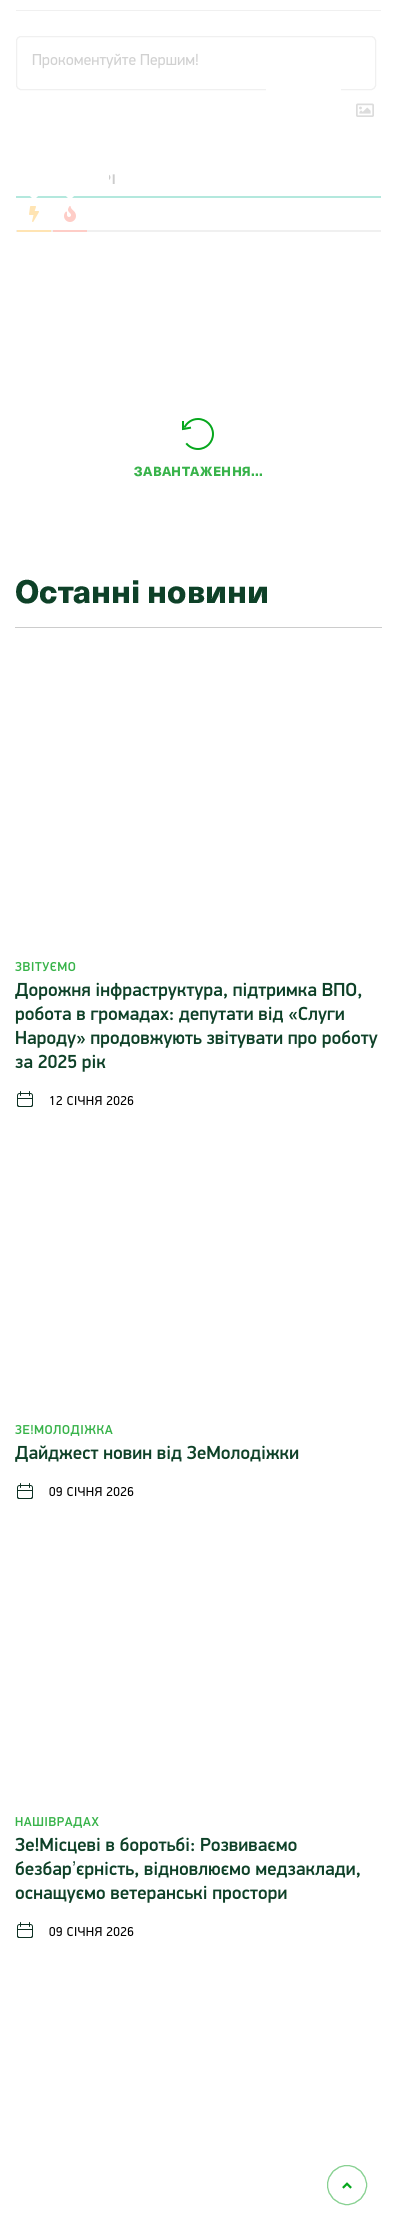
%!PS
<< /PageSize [397 2235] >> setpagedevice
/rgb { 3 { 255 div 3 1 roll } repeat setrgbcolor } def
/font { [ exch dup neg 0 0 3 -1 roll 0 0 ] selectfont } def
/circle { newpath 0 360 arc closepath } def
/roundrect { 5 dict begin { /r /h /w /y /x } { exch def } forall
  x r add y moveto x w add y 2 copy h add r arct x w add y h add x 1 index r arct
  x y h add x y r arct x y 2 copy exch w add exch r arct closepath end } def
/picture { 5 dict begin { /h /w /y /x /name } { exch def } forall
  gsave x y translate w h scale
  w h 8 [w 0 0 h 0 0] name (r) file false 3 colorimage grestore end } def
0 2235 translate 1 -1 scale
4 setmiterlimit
255 255 255 rgb
0 0 397 2235 rectfill
240 240 240 rgb
16 10 365 1 rectfill
16.5 36.5 359 53 4.5 roundrect stroke
(img/1.rgb) 32 53 166 16 picture
255 255 255 rgb
266 71 75 82 4 roundrect fill
(img/2.rgb) 356 103 18 14 picture
240 240 240 rgb
16 230 365 2 rectfill
179 232 221 rgb
16 196 365 2 rectfill
(img/3.rgb) 109 174 6 10 picture
255 228 179 rgb
17 230 34 2 rectfill
255 255 255 rgb
27 193 moveto 41 193 lineto 34 200 lineto closepath 63 193 moveto 77 193 lineto 70 200 lineto closepath fill
(img/4.rgb) 29 206 10 16 picture
254 205 199 rgb
53 230 34 2 rectfill
(img/5.rgb) 64 206 12 16 picture
(img/6.rgb) 182 418 32 32 picture
204 204 204 rgb
15 627 367 1 rectfill
(img/7.rgb) 15 962 61 10 picture
(img/8.rgb) 15 982 347 18 picture
(img/9.rgb) 15 1006 329 18 picture
(img/10.rgb) 16 1030 362 18 picture
(img/11.rgb) 15 1054 91 18 picture
(img/12.rgb) 17 1091 16 16 picture
(img/13.rgb) 50 1096 84 10 picture
(img/14.rgb) 15 1424 98 12 picture
(img/15.rgb) 15 1445 284 17 picture
(img/12.rgb) 17 1483 16 16 picture
(img/16.rgb) 49 1487 85 10 picture
(img/17.rgb) 15 1817 84 11 picture
(img/18.rgb) 15 1837 282 18 picture
(img/19.rgb) 15 1861 56 18 picture
(img/20.rgb) 76 1861 284 18 picture
(img/21.rgb) 15 1885 272 18 picture
(img/12.rgb) 17 1922 16 16 picture
(img/16.rgb) 49 1927 85 10 picture
136 209 146 rgb
347 2185 19.5 circle stroke
(img/22.rgb) 342 2182 10 7 picture
/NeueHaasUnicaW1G-Black 13 font
56 179 74 rgb
134 476 moveto 0.4 0 (ЗАВАНТАЖЕННЯ...) ashow
/NeueHaasUnicaW1G-Black 32 font
14 65 40 rgb
15 603 moveto (Останні новини) show
/LiberationSans-Regular 19 font
72 1875 moveto (ʼ) show
showpage
